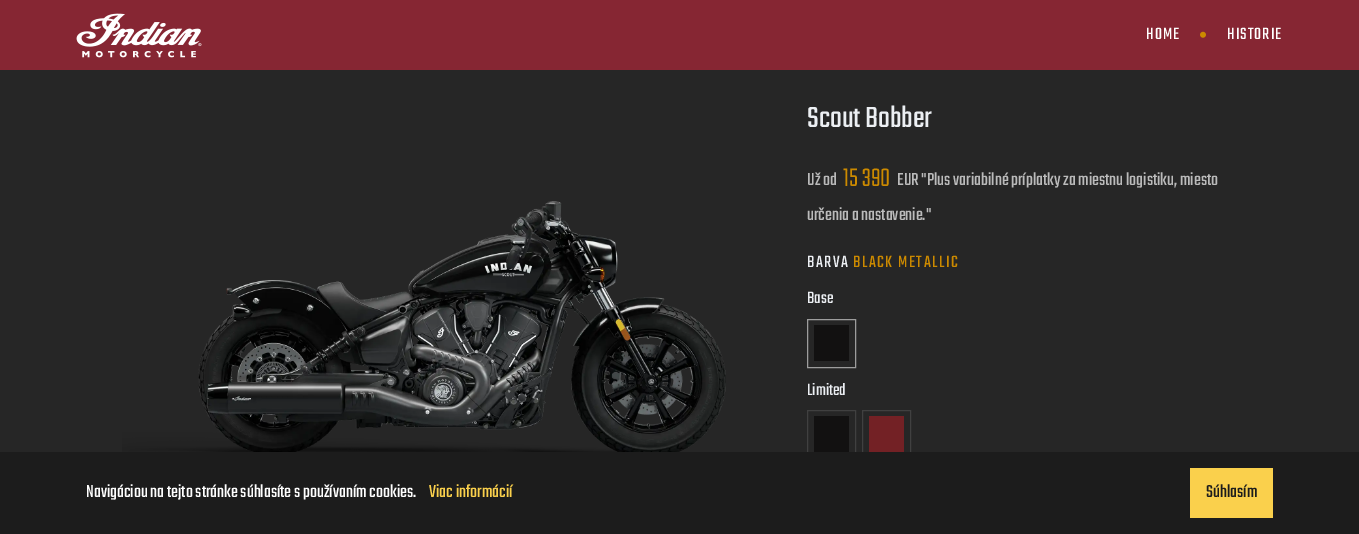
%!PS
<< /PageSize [1359 534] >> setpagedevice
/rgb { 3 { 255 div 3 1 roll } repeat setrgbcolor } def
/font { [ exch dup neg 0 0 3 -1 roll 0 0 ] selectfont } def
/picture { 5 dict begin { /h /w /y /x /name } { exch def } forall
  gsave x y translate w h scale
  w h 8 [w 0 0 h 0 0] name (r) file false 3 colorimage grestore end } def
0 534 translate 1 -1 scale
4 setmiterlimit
38 38 38 rgb
0 0 1359 534 rectfill
134 38 51 rgb
0 0 1359 70 rectfill
(img/1.rgb) 76 13 126 45 picture
(img/2.rgb) 1200 31 6 7 picture
(img/3.rgb) 122 201 604 251 picture
157 157 157 rgb
807.5 319.5 48 48 rectstroke
18 17 17 rgb
814 325 35 36 rectfill
64 64 64 rgb
807.5 410.5 48 49 rectstroke
18 17 17 rgb
814 416 35 36 rectfill
64 64 64 rgb
862.5 410.5 48 49 rectstroke
[
  [869 416 35 36 115 33 37]
  [0 452 1359 82 28 28 28]
  [1190 468 83 50 250 208 76]
] { aload pop rgb rectfill } forall
/Teko-Regular 18 font
255 255 255 rgb
1146 39 moveto 1 0 (HOME) ashow
1227 39 moveto 1 0 (HISTORIE) ashow
/Teko-Regular 32 font
236 239 243 rgb
807 127 moveto (Scout Bobber) show
/Teko-Regular 19 font
187 187 187 rgb
807 185 moveto (Už od) show
/Teko-Light 28 font
204 138 0 rgb
843 186 moveto (15 390) show
/Teko-Regular 19 font
187 187 187 rgb
897 185 moveto (EUR "Plus variabilné príplatky za miestnu logistiku, miesto) show
807 220 moveto (určenia a nastavenie.") show
/Teko-Regular 18 font
236 239 243 rgb
807 267 moveto 1.5 0 (BARVA) ashow
204 138 0 rgb
853 267 moveto 1.5 0 (BLACK METALLIC) ashow
236 239 243 rgb
807 303 moveto (Base) show
807 395 moveto (Limited) show
/Teko-Regular 19 font
255 255 255 rgb
86 497 moveto (Navigáciou na tejto stránke súhlasíte s používaním cookies.) show
250 208 76 rgb
429 497 moveto (Viac informácií) show
28 28 28 rgb
1206 497 moveto (Súhlasím) show
showpage
